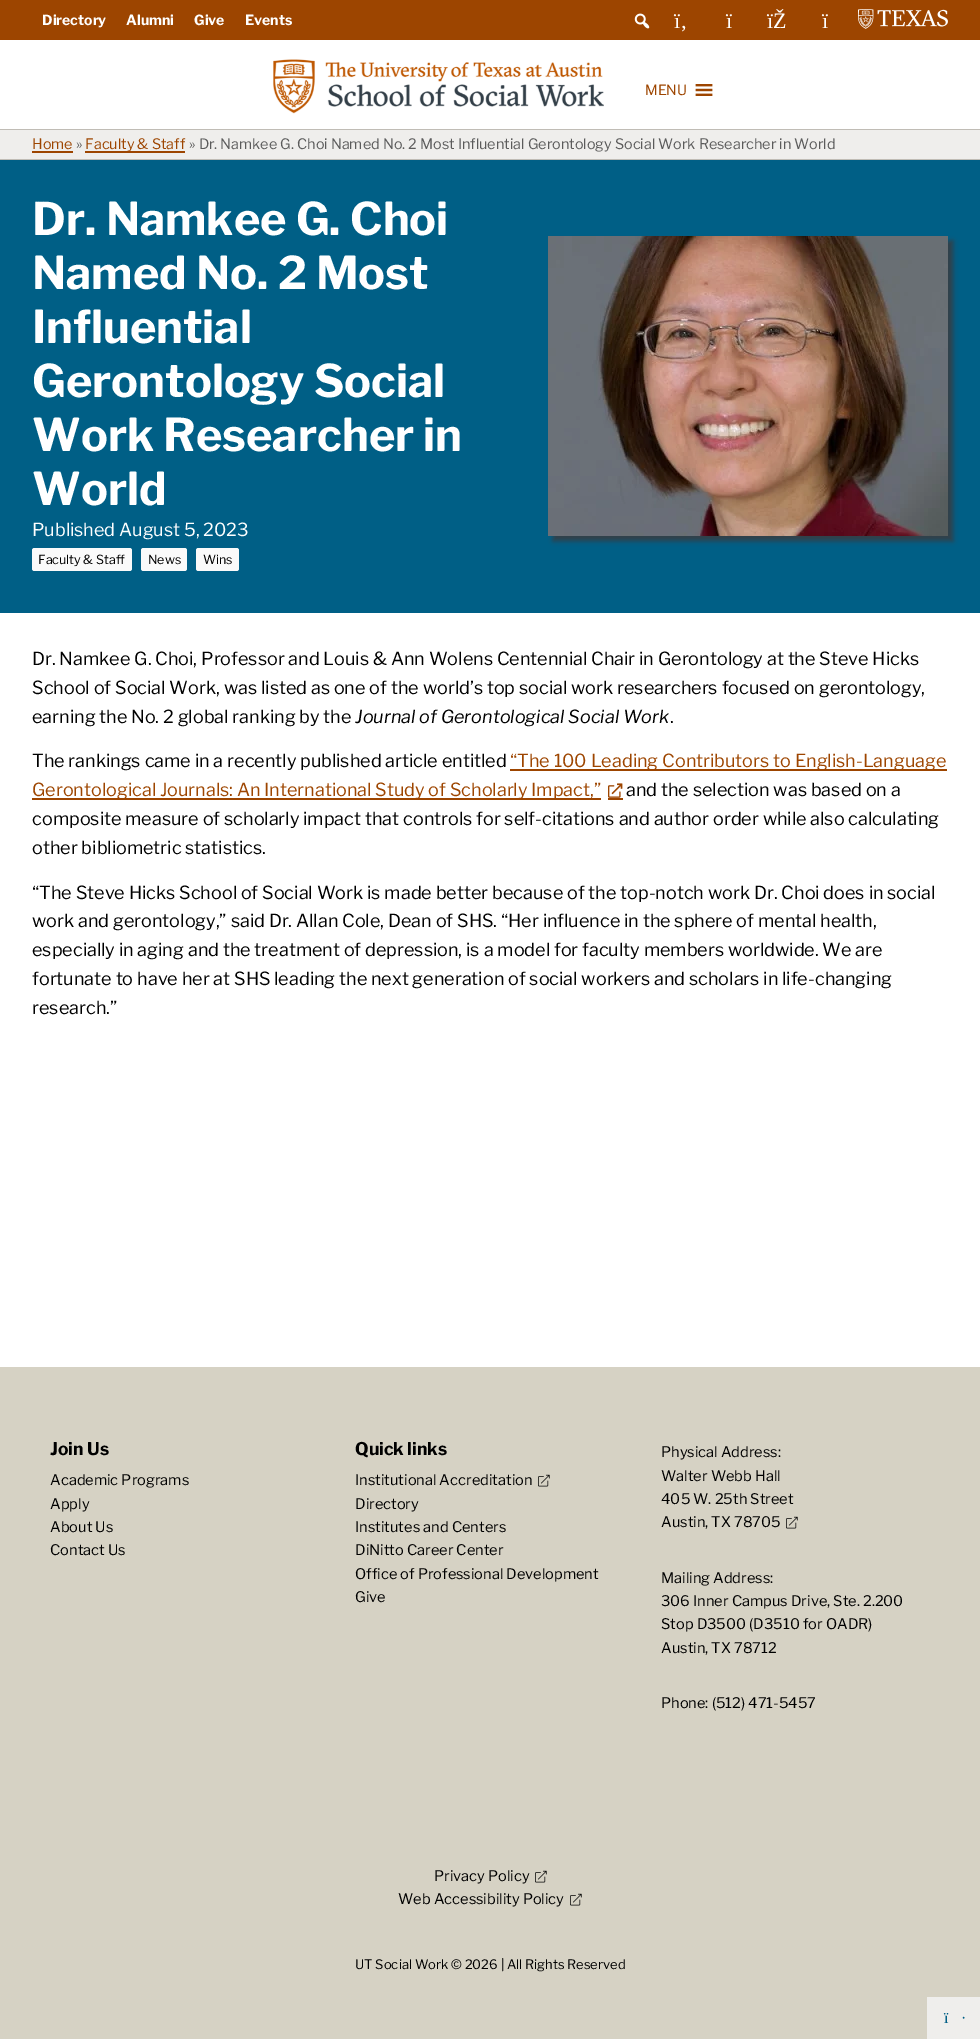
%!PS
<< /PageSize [980 2039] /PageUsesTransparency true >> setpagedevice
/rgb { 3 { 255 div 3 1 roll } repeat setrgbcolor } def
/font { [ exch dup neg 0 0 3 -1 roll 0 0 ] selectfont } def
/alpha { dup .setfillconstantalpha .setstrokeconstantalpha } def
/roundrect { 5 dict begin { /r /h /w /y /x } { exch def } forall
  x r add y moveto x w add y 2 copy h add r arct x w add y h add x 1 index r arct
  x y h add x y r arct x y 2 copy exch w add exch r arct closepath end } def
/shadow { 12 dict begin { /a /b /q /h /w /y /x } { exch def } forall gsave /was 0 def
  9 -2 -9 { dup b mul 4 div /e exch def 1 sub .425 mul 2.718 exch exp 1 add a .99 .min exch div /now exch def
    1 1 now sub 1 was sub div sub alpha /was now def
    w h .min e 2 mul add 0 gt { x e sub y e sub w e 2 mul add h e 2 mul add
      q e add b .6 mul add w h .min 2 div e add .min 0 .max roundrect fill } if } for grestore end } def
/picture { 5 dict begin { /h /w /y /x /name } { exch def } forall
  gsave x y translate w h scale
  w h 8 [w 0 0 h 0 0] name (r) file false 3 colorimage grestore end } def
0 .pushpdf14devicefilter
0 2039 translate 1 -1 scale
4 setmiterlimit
255 255 255 rgb
0 0 980 2039 rectfill
192 188 181 rgb
0 129 980 1 rectfill
157 69 0 rgb
0 0 980 40 rectfill
(img/1.rgb) 634 13 16 16 picture
(img/2.rgb) 858 9 90 20 picture
(img/3.rgb) 273 59 331 55 picture
(img/4.rgb) 695 84 18 12 picture
[
  [0 130 980 29 239 238 236]
  [0 159 980 1 192 188 181]
  [32 151 41 2 157 69 0]
  [85 151 100 2 157 69 0]
  [0 160 980 453 0 95 134]
] { aload pop rgb rectfill } forall
250 250 250 rgb
32 548 100 23 2.5 roundrect fill
141 548 46 23 2.5 roundrect fill
196 548 43 23 2.5 roundrect fill
51 63 72 rgb
553 241 400 300 0 2.5 1 shadow
(img/5.rgb) 548 236 400 300 picture
[
  [510 769 437 2 157 69 0]
  [32 798 569 2 157 69 0]
  [608 798 15 2 157 69 0]
] { aload pop rgb rectfill } forall
(img/6.rgb) 608 783 15 15 picture
214 210 196 rgb
0 1367 980 672 rectfill
(img/7.rgb) 538 1474 12 13 picture
(img/7.rgb) 786 1516 12 13 picture
(img/7.rgb) 535 1870 12 13 picture
(img/7.rgb) 570 1893 12 13 picture
239 238 236 rgb
927 1997 53 42 rectfill
/LibreFranklin-Bold 14 font
255 255 255 rgb
[
  [(Directory) 42 25]
  [(Alumni) 126 25]
  [(Give) 194 25]
  [(Events) 245 25]
] { aload pop moveto show } forall
/LiberationSerif-Regular 22 font
[
  [(ï‚) 674 28]
  [(ï) 726 28]
  [(ïŽ) 767 28]
  [(ï) 822 28]
] { aload pop moveto show } forall
/LibreFranklin-Regular 14 font
157 69 0 rgb
645 95 moveto (MENU) show
/LibreFranklin-Regular 14.4 font
32 149 moveto (Home) show
91 91 91 rgb
76 149 moveto (») show
157 69 0 rgb
85 149 moveto (Faculty & Staff) show
91 91 91 rgb
189 149 moveto (» Dr. Namkee G. Choi Named No. 2 Most Influential Gerontology Social Work Researcher in World) show
/LibreFranklin-Bold 45 font
255 255 255 rgb
[
  [(Dr. Namkee G. Choi) 32 235]
  [(Named No. 2 Most) 32 289]
  [(Influential) 32 343]
  [(Gerontology Social) 32 397]
  [(Work Researcher in) 32 451]
  [(World) 32 505]
] { aload pop moveto show } forall
/LibreFranklin-Regular 18 font
32 536 moveto (Published August 5, 2023) show
/LibreFranklin-Regular 12.5 font
0 0 0 rgb
[
  [(Faculty & Staff) 38 564]
  [(News) 148 564]
  [(Wins) 203 564]
] { aload pop moveto show } forall
/LibreFranklin-Regular 18 font
[
  [(Dr. Namkee G. Choi, Professor and Louis & Ann Wolens Centennial Chair in Gerontology at the Steve Hicks) 32 665]
  [(School of Social Work, was listed as one of the world’s top social work researchers focused on gerontology,) 32 694]
  [(earning the No. 2 global ranking by the) 32 723]
] { aload pop moveto show } forall
/LibreFranklin-Italic 18 font
355 723 moveto (Journal of Gerontological Social Work) show
/LibreFranklin-Regular 18 font
670 723 moveto (.) show
32 767 moveto (The rankings came in a recently published article entitled) show
157 69 0 rgb
510 767 moveto (“The 100 Leading Contributors to English-Language) show
32 796 moveto (Gerontological Journals: An International Study of Scholarly Impact,”) show
0 0 0 rgb
[
  [(and the selection was based on a) 626 796]
  [(composite measure of scholarly impact that controls for self-citations and author order while also calculating) 32 825]
  [(other bibliometric statistics.) 32 854]
  [(“The Steve Hicks School of Social Work is made better because of the top-notch work Dr. Choi does in social) 32 899]
  [(work and gerontology,” said Dr. Allan Cole, Dean of SHS. “Her influence in the sphere of mental health,) 32 927]
  [(especially in aging and the treatment of depression, is a model for faculty members worldwide. We are) 32 956]
  [(fortunate to have her at SHS leading the next generation of social workers and scholars in life-changing) 32 985]
  [(research.”) 32 1014]
] { aload pop moveto show } forall
/LibreFranklin-Bold 17.5 font
50 1455 moveto (Join Us) show
/LibreFranklin-Regular 14.6 font
[
  [(Academic Programs) 50 1485]
  [(Apply) 50 1509]
  [(About Us) 50 1532]
  [(Contact Us) 50 1555]
] { aload pop moveto show } forall
/LibreFranklin-Bold 17.5 font
355 1455 moveto (Quick links) show
/LibreFranklin-Regular 14.6 font
[
  [(Institutional Accreditation) 355 1485]
  [(Directory) 355 1509]
  [(Institutes and Centers) 355 1532]
  [(DiNitto Career Center) 355 1555]
  [(Office of Professional Development) 355 1579]
  [(Give) 355 1602]
  [(Physical Address:) 661 1457]
  [(Walter Webb Hall) 661 1481]
  [(405 W. 25th Street) 661 1504]
  [(Austin, TX 78705) 661 1527]
  [(Mailing Address:) 661 1583]
  [(306 Inner Campus Drive, Ste. 2.200) 661 1606]
  [(Stop D3500 \(D3510 for OADR\)) 661 1629]
  [(Austin, TX 78712) 661 1653]
  [(Phone: \(512\) 471-5457) 661 1708]
  [(Privacy Policy) 434 1881]
  [(Web Accessibility Policy) 398 1904]
] { aload pop moveto show } forall
/LibreFranklin-Regular 13 font
355 1969 moveto (UT Social Work © 2026 | All Rights Reserved) show
/LiberationSerif-Regular 16 font
0 95 134 rgb
944 2023 moveto (ï) show
961 2023 moveto (·) show
.poppdf14devicefilter showpage
